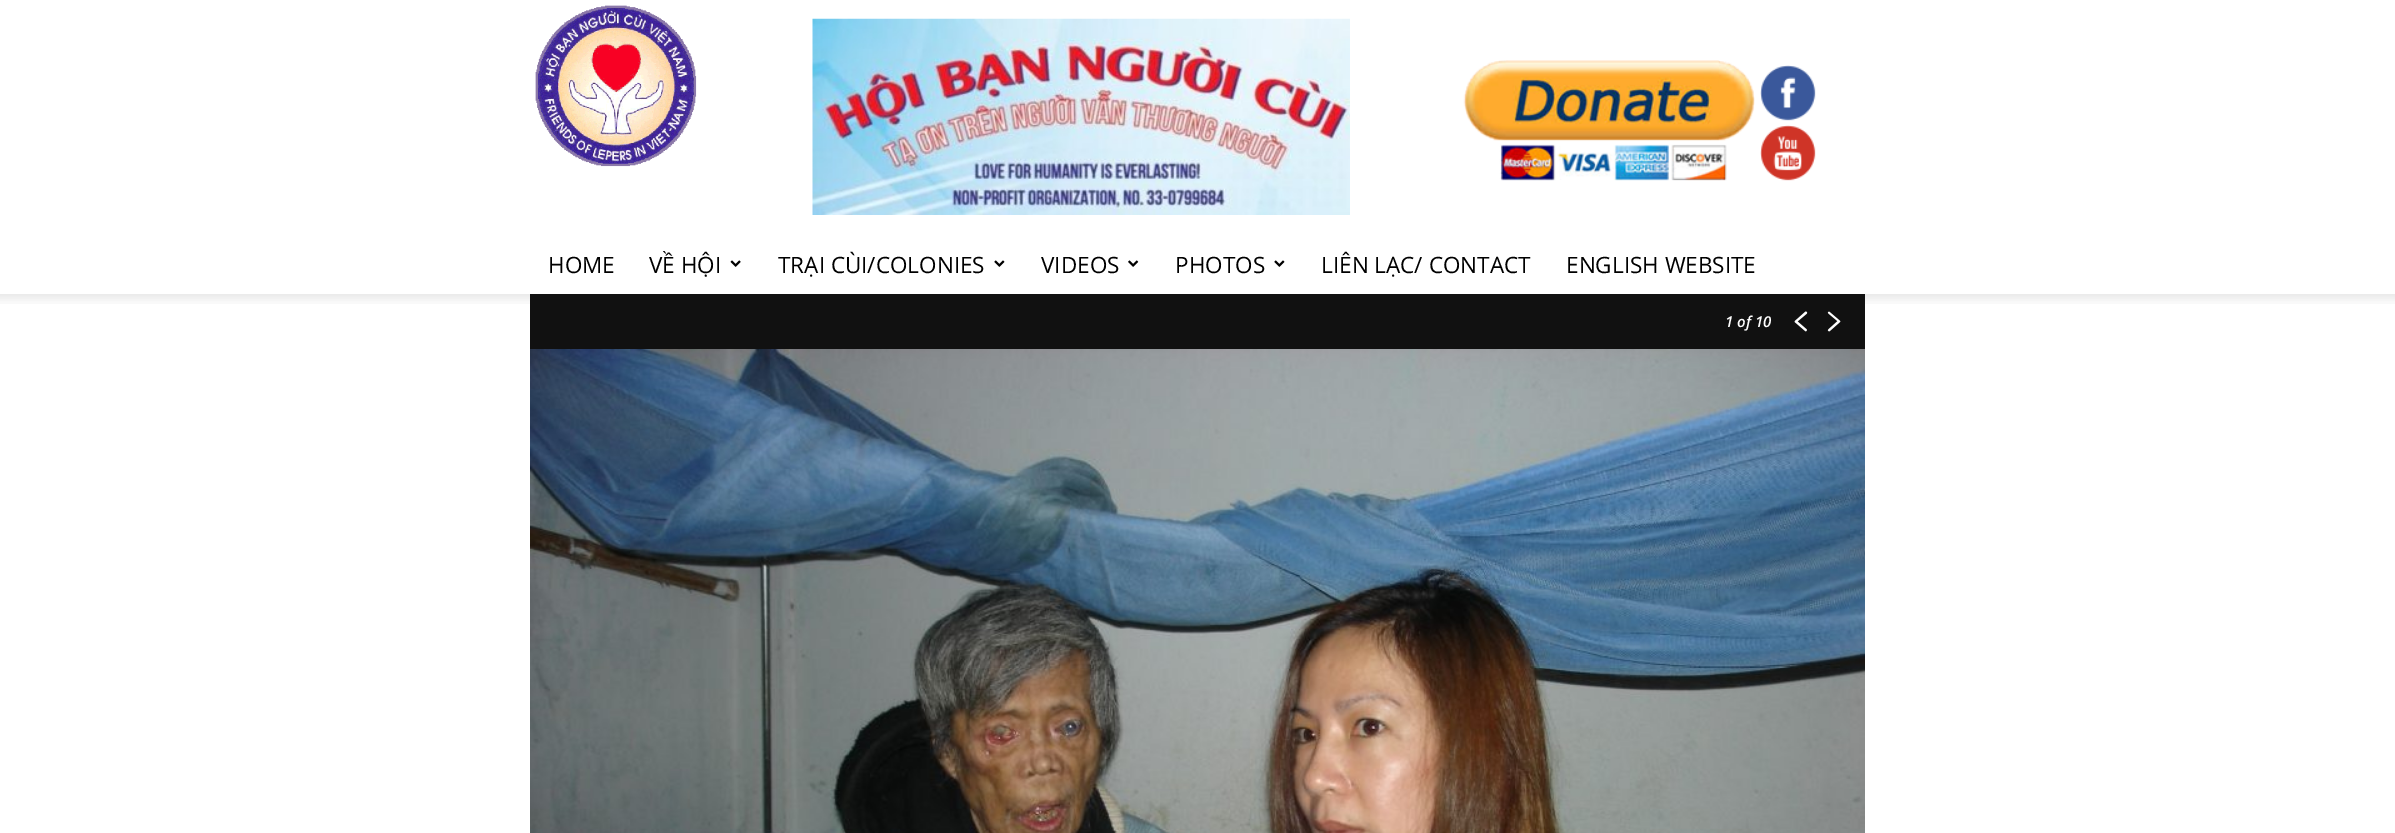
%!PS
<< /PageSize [2395 833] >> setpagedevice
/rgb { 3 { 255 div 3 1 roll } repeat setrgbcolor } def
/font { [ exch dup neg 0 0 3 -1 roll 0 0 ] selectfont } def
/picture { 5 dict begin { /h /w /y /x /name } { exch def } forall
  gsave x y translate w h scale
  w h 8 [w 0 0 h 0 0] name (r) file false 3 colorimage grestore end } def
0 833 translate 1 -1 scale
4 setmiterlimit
255 255 255 rgb
0 0 2395 833 rectfill
(img/1.rgb) 535 5 162 162 picture
(img/2.rgb) 812 18 538 197 picture
(img/3.rgb) 1463 60 292 121 picture
(img/4.rgb) 1760 65 56 56 picture
(img/5.rgb) 1760 125 56 56 picture
(img/6.rgb) 730 260 11 7 picture
(img/7.rgb) 994 260 11 7 picture
(img/8.rgb) 1128 260 11 7 picture
(img/7.rgb) 1274 260 11 7 picture
(img/9.rgb) 0 294 2395 10 picture
17 17 17 rgb
530 294 1335 55 rectfill
(img/10.rgb) 1794 311 14 21 picture
(img/11.rgb) 1827 311 14 21 picture
(img/12.rgb) 530 349 1335 484 picture
/OpenSans-Regular 22.5 font
0 0 0 rgb
[
  [(HOME) 548 273]
  [(VỀ HỘI) 649 273]
  [(TRẠI CÙI/COLONIES) 778 273]
  [(VIDEOS) 1041 273]
  [(PHOTOS) 1175 273]
  [(LIÊN LẠC/ CONTACT) 1321 273]
  [(ENGLISH WEBSITE) 1566 273]
] { aload pop moveto show } forall
/OpenSans-SemiBoldItalic 15 font
255 255 255 rgb
1725 327 moveto (1 of 10) show
showpage
